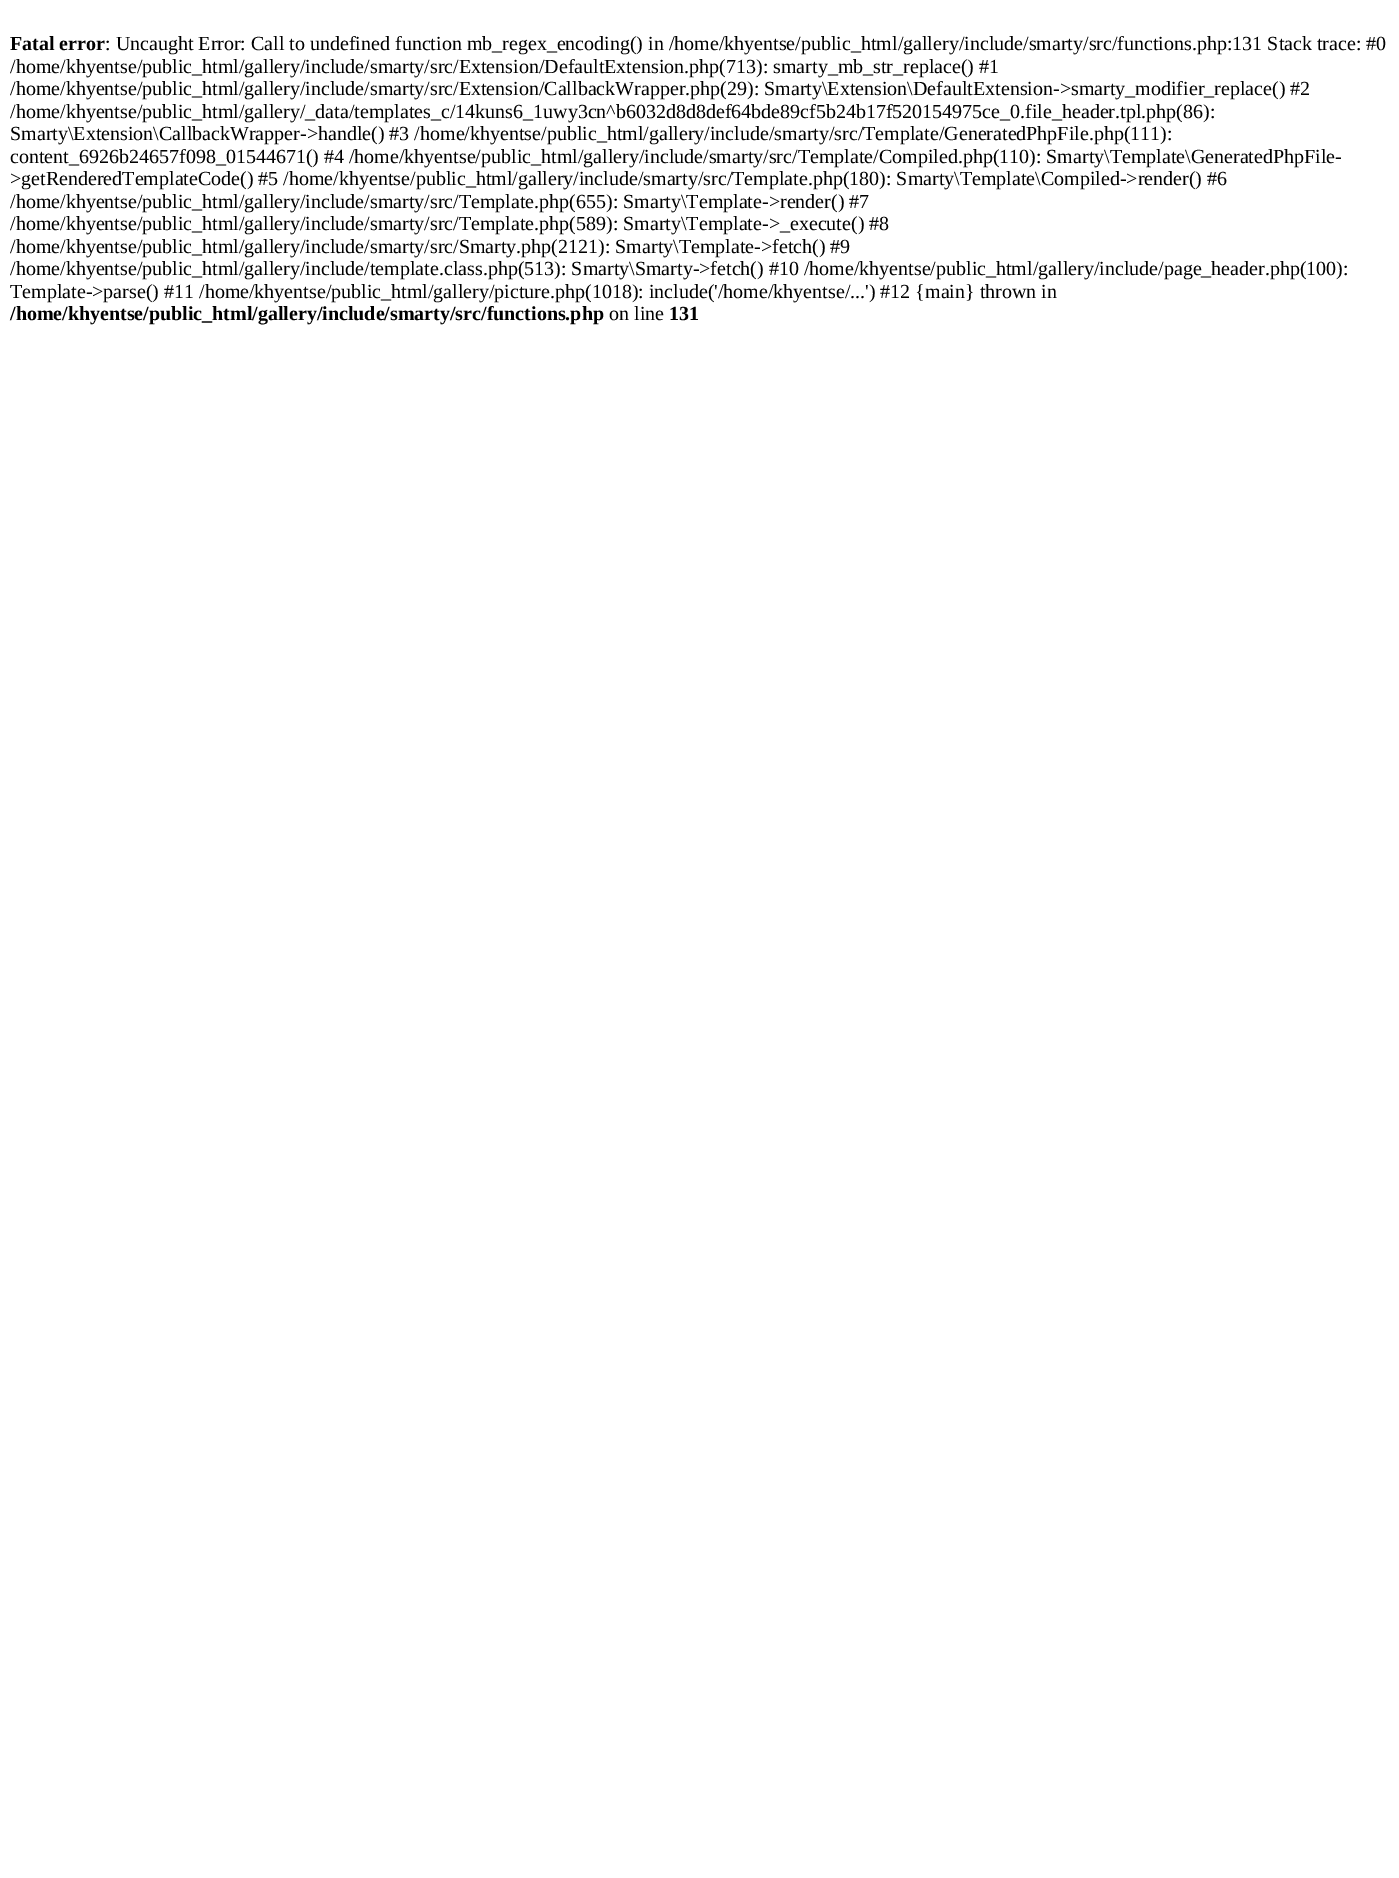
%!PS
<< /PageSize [1399 1878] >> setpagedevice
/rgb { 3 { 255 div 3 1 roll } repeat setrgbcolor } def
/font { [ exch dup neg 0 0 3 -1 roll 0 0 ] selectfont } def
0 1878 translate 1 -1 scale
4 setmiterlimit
255 255 255 rgb
0 0 1399 1878 rectfill
/LiberationSerif-Bold 20 font
0 0 0 rgb
10 50 moveto (Fatal error) show
/LiberationSerif-Regular 20 font
[
  [(: Uncaught Error: Call to undefined function mb_regex_encoding\(\) in /home/khyentse/public_html/gallery/include/smarty/src/functions.php:131 Stack trace: #0) 105 50]
  [(/home/khyentse/public_html/gallery/include/smarty/src/Extension/DefaultExtension.php\(713\): smarty_mb_str_replace\(\) #1) 10 73]
  [(/home/khyentse/public_html/gallery/include/smarty/src/Extension/CallbackWrapper.php\(29\): Smarty\\Extension\\DefaultExtension->smarty_modifier_replace\(\) #2) 10 95]
  [(/home/khyentse/public_html/gallery/_data/templates_c/14kuns6_1uwy3cn^b6032d8d8def64bde89cf5b24b17f520154975ce_0.file_header.tpl.php\(86\):) 10 118]
  [(Smarty\\Extension\\CallbackWrapper->handle\(\) #3 /home/khyentse/public_html/gallery/include/smarty/src/Template/GeneratedPhpFile.php\(111\):) 10 140]
  [(content_6926b24657f098_01544671\(\) #4 /home/khyentse/public_html/gallery/include/smarty/src/Template/Compiled.php\(110\): Smarty\\Template\\GeneratedPhpFile-) 10 163]
  [(>getRenderedTemplateCode\(\) #5 /home/khyentse/public_html/gallery/include/smarty/src/Template.php\(180\): Smarty\\Template\\Compiled->render\(\) #6) 10 185]
  [(/home/khyentse/public_html/gallery/include/smarty/src/Template.php\(655\): Smarty\\Template->render\(\) #7) 10 208]
  [(/home/khyentse/public_html/gallery/include/smarty/src/Template.php\(589\): Smarty\\Template->_execute\(\) #8) 10 230]
  [(/home/khyentse/public_html/gallery/include/smarty/src/Smarty.php\(2121\): Smarty\\Template->fetch\(\) #9) 10 253]
  [(/home/khyentse/public_html/gallery/include/template.class.php\(513\): Smarty\\Smarty->fetch\(\) #10 /home/khyentse/public_html/gallery/include/page_header.php\(100\):) 10 275]
  [(Template->parse\(\) #11 /home/khyentse/public_html/gallery/picture.php\(1018\): include\('/home/khyentse/...'\) #12 {main} thrown in) 10 298]
] { aload pop moveto show } forall
/LiberationSerif-Bold 20 font
10 320 moveto (/home/khyentse/public_html/gallery/include/smarty/src/functions.php) show
/LiberationSerif-Regular 20 font
609 320 moveto (on line) show
/LiberationSerif-Bold 20 font
669 320 moveto (131) show
showpage
